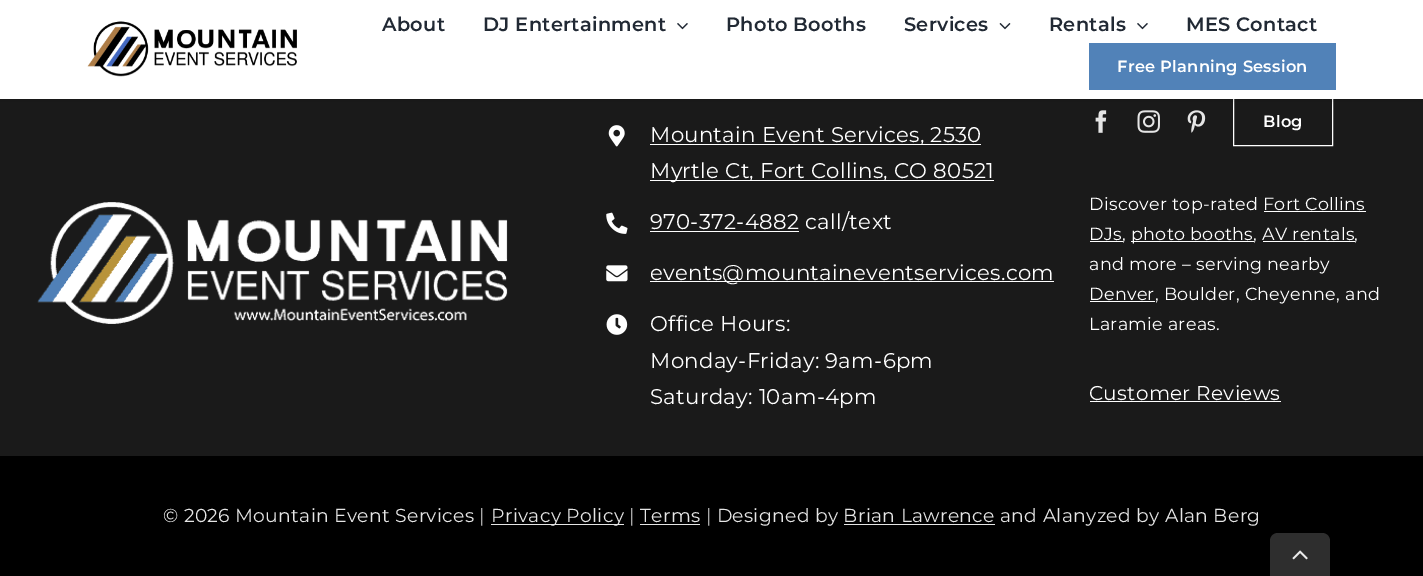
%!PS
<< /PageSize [1423 576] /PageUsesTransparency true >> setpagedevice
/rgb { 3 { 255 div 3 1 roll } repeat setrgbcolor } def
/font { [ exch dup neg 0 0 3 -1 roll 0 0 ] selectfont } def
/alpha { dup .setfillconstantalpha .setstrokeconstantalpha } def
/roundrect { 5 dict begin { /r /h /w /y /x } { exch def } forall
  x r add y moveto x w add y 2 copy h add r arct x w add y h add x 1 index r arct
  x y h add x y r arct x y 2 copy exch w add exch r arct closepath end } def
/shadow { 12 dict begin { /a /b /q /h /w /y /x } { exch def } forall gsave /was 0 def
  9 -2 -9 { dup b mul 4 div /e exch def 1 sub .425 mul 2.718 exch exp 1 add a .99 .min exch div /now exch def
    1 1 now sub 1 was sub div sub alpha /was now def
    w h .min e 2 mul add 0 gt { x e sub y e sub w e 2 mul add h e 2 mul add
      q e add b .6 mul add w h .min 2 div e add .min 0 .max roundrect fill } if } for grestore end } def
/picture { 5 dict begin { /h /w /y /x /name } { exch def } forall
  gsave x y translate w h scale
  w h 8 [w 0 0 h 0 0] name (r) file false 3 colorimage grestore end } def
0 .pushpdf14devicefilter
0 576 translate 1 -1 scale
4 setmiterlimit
26 26 26 rgb
0 0 1423 576 rectfill
(img/9.rgb) 1095 110 12 23 picture
(img/10.rgb) 1137 110 23 23 picture
(img/11.rgb) 1187 110 19 23 picture
255 255 255 rgb
1233.5 96.5 99 49 rectstroke
0 0 0 rgb
0 0 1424 99 0 4 0.2 shadow
255 255 255 rgb
0 0 1423 99 rectfill
(img/1.rgb) 87 21 210 56 picture
(img/2.rgb) 677 23 11 7 picture
(img/3.rgb) 999 23 12 7 picture
(img/2.rgb) 1137 23 11 7 picture
81 130 184 rgb
1089 43 247 47 rectfill
(img/4.rgb) 37 202 471 122 picture
(img/5.rgb) 608 125 17 22 picture
255 255 255 rgb
650 144 331 1 rectfill
650 180 344 1 rectfill
(img/6.rgb) 606 212 22 22 picture
650 231 149 1 rectfill
(img/7.rgb) 606 265 22 17 picture
650 281 404 1 rectfill
(img/8.rgb) 606 314 22 21 picture
[
  [1264 211 102 1 255 255 255]
  [1090 241 33 1 255 255 255]
  [1131 241 123 1 255 255 255]
  [1263 241 92 1 255 255 255]
  [1090 301 65 1 255 255 255]
  [1090 401 191 1 255 255 255]
  [0 456 1423 120 0 0 0]
  [491 524 133 1 229 229 229]
  [640 524 60 1 229 229 229]
  [844 524 151 1 229 229 229]
] { aload pop rgb rectfill } forall
46 46 46 rgb
1278 533 moveto 1322 533 lineto 1326.5 533 1330 536.5 1330 541 curveto 1330 576 lineto 1270 576 lineto 1270 541 lineto 1270 536.5 1273.5 533 1278 533 curveto closepath fill
(img/12.rgb) 1292 550 16 10 picture
/Montserrat-SemiBold 19.4 font
33 41 52 rgb
382 31 moveto 0.25 0 (About) ashow
483 31 moveto 0.25 0 (DJ Entertainment) ashow
726 31 moveto 0.25 0 (Photo Booths) ashow
904 31 moveto 0.25 0 (Services) ashow
1049 31 moveto 0.25 0 (Rentals) ashow
1186 31 moveto 0.25 0 (MES Contact) ashow
/Montserrat-SemiBold 16.25 font
255 255 255 rgb
1117 72 moveto 0.25 0 (Free Planning Session) ashow
/Montserrat-Regular 21.25 font
650 142 moveto 0.3 0 (Mountain Event Services, 2530) ashow
650 178 moveto 0.3 0 (Myrtle Ct, Fort Collins, CO 80521) ashow
650 229 moveto 0.3 0 (970-372-4882 call/text) ashow
650 280 moveto 0.3 0 (events@mountaineventservices.com) ashow
650 331 moveto 0.3 0 (Office Hours:) ashow
650 368 moveto 0.3 0 (Monday-Friday: 9am-6pm) ashow
650 404 moveto 0.3 0 (Saturday: 10am-4pm) ashow
/Montserrat-SemiBold 16.25 font
1263 127 moveto 0.25 0 (Blog) ashow
/Montserrat-Regular 17.5 font
1089 210 moveto 0.3 0 (Discover top-rated Fort Collins) ashow
1089 240 moveto 0.3 0 (DJs,) ashow
1131 240 moveto 0.3 0 (photo booths, AV rentals,) ashow
1089 270 moveto 0.3 0 (and more – serving nearby) ashow
1089 300 moveto 0.3 0 (Denver, Boulder, Cheyenne, and) ashow
1089 330 moveto 0.3 0 (Laramie areas.) ashow
/Montserrat-Regular 20 font
1089 400 moveto 0.3 0 (Customer Reviews) ashow
/Montserrat-Regular 18.75 font
229 229 229 rgb
163 522 moveto 0.3 0 (© 2026 Mountain Event Services |) ashow
491 522 moveto 0.3 0 (Privacy Policy | Terms | Designed by Brian Lawrence and Alanyzed by Alan Berg) ashow
.poppdf14devicefilter showpage
